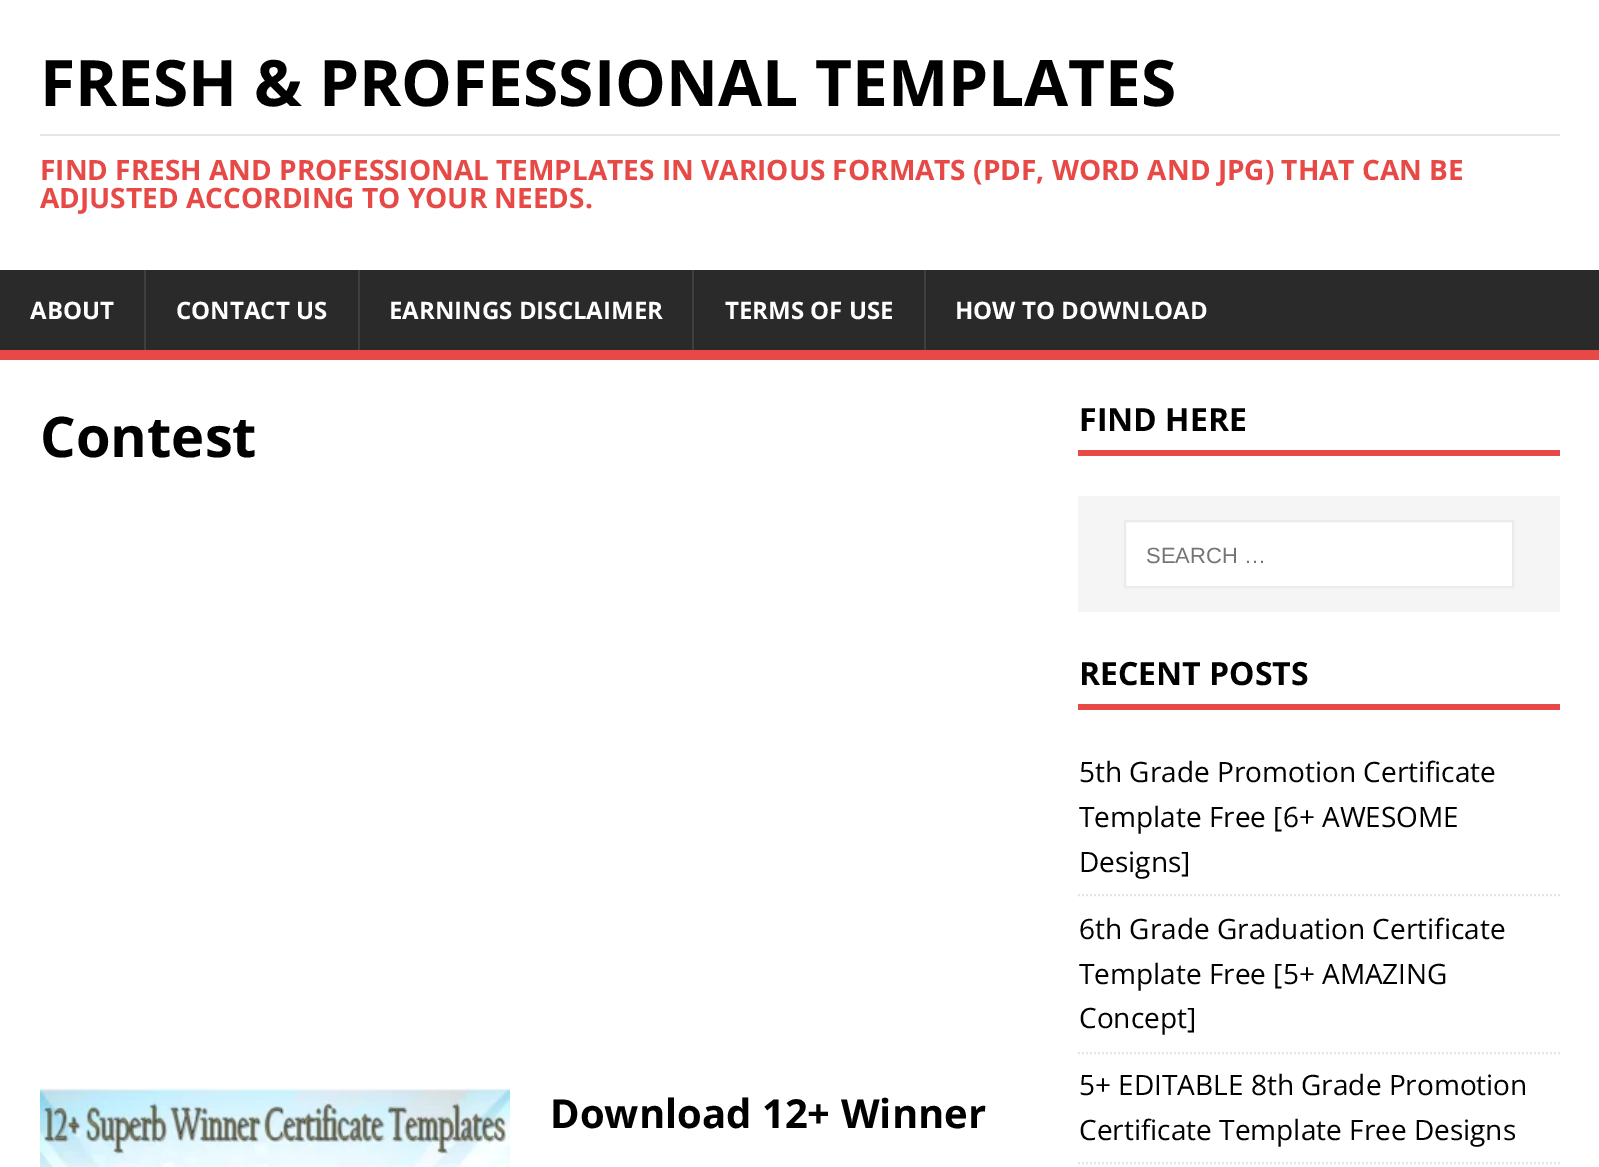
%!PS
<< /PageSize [1599 1167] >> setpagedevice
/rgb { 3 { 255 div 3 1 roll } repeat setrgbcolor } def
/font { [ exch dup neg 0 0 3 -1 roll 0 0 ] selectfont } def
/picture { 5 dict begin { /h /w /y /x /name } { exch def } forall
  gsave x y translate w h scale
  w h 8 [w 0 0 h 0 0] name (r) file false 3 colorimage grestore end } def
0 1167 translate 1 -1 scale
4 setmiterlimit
255 255 255 rgb
0 0 1599 1167 rectfill
[
  [40 134 1520 2 229 229 229]
  [0 270 1599 80 42 42 42]
  [0 350 1599 10 230 73 70]
  [144 270 2 80 63 63 63]
  [358 270 2 80 63 63 63]
  [692 270 2 80 63 63 63]
  [924 270 2 80 63 63 63]
] { aload pop rgb rectfill } forall
(img/1.rgb) 40 1088 470 79 picture
230 73 70 rgb
1078 450 482 6 rectfill
245 245 245 rgb
1078 496 482 116 rectfill
255 255 255 rgb
1125 521 moveto 1513 521 lineto 1513 587 lineto 1125 587 lineto closepath gsave fill grestore
235 235 235 rgb
2 setlinewidth
stroke
230 73 70 rgb
1078 704 482 6 rectfill
229 229 229 rgb
[2 2] 0 setdash
1078 895 moveto 1560 895 lineto stroke
1078 1053 moveto 1560 1053 lineto stroke
1078 1163 moveto 1560 1163 lineto stroke
/OpenSans-Bold 64 font
0 0 0 rgb
40 106 moveto (FRESH & PROFESSIONAL TEMPLATES) show
/OpenSans-Bold 28 font
230 73 70 rgb
40 180 moveto (FIND FRESH AND PROFESSIONAL TEMPLATES IN VARIOUS FORMATS \(PDF, WORD AND JPG\) THAT CAN BE) show
40 208 moveto (ADJUSTED ACCORDING TO YOUR NEEDS.) show
/OpenSans-Bold 24 font
255 255 255 rgb
[
  [(ABOUT) 30 319]
  [(CONTACT US) 176 319]
  [(EARNINGS DISCLAIMER) 389 319]
  [(TERMS OF USE) 725 319]
  [(HOW TO DOWNLOAD) 955 319]
] { aload pop moveto show } forall
/OpenSans-Bold 56 font
0 0 0 rgb
40 457 moveto (Contest) show
/OpenSans-Bold 40 font
550 1128 moveto (Download 12+ Winner) show
/OpenSans-Bold 32 font
1079 431 moveto (FIND HERE) show
/LiberationSans-Regular 22 font
117 117 117 rgb
1146 563 moveto (SEARCH …) show
/OpenSans-Bold 32 font
0 0 0 rgb
1079 685 moveto (RECENT POSTS) show
/OpenSans-Regular 28 font
[
  [(5th Grade Promotion Certificate) 1079 782]
  [(Template Free [6+ AWESOME) 1079 827]
  [(Designs]) 1079 872]
  [(6th Grade Graduation Certificate) 1079 939]
  [(Template Free [5+ AMAZING) 1079 984]
  [(Concept]) 1079 1028]
  [(5+ EDITABLE 8th Grade Promotion) 1079 1095]
  [(Certificate Template Free Designs) 1079 1140]
] { aload pop moveto show } forall
showpage
